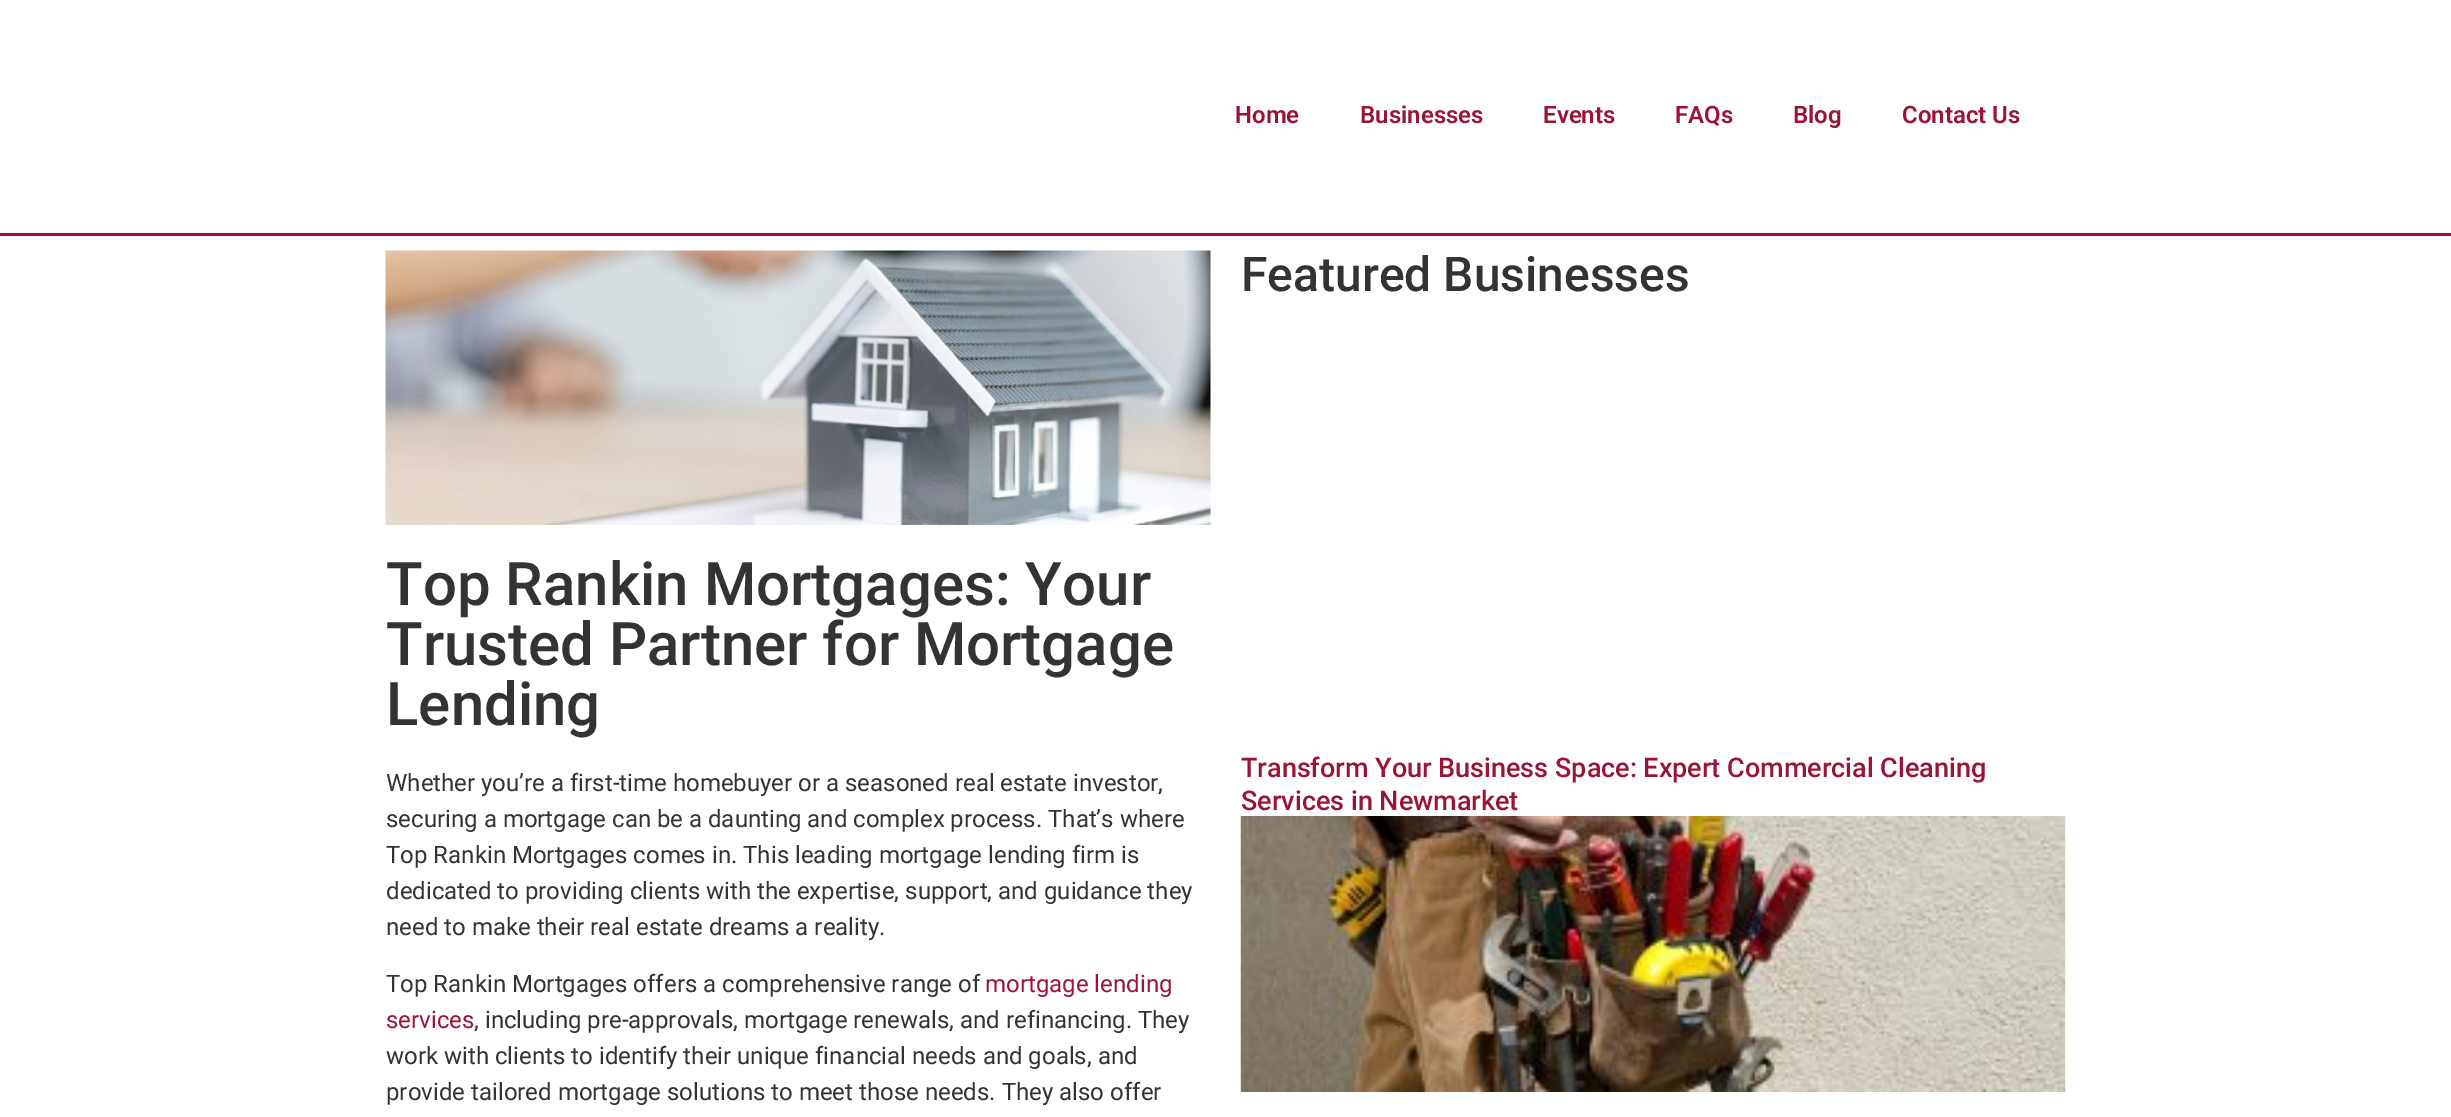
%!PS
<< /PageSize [2451 1117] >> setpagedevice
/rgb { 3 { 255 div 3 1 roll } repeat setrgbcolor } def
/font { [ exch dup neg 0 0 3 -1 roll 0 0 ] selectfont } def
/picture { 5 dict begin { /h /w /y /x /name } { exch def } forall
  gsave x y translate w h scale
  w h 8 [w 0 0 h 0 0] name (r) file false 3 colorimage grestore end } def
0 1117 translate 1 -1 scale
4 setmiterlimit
255 255 255 rgb
0 0 2451 1117 rectfill
156 20 52 rgb
0 233 2451 3 rectfill
(img/1.rgb) 385 250 826 275 picture
(img/2.rgb) 1240 816 826 276 picture
/Roboto-SemiBold 24 font
[
  [(Home) 1235 123]
  [(Businesses) 1360 123]
  [(Events) 1543 123]
  [(FAQs) 1675 123]
  [(Blog) 1793 123]
  [(Contact Us) 1902 123]
] { aload pop moveto show } forall
/Roboto-Medium 60 font
51 51 51 rgb
[
  [(Top Rankin Mortgages: Your) 386 605]
  [(Trusted Partner for Mortgage) 386 665]
  [(Lending) 386 725]
] { aload pop moveto show } forall
/Roboto-Regular 24 font
[
  [(Whether you’re a first-time homebuyer or a seasoned real estate investor,) 386 791]
  [(securing a mortgage can be a daunting and complex process. That’s where) 386 827]
  [(Top Rankin Mortgages comes in. This leading mortgage lending firm is) 386 863]
  [(dedicated to providing clients with the expertise, support, and guidance they) 386 899]
  [(need to make their real estate dreams a reality.) 386 935]
  [(Top Rankin Mortgages offers a comprehensive range of) 386 992]
] { aload pop moveto show } forall
156 20 52 rgb
985 992 moveto (mortgage lending) show
386 1028 moveto (services) show
51 51 51 rgb
[
  [(, including pre-approvals, mortgage renewals, and refinancing. They) 474 1028]
  [(work with clients to identify their unique financial needs and goals, and) 386 1064]
  [(provide tailored mortgage solutions to meet those needs. They also offer) 386 1100]
] { aload pop moveto show } forall
/Roboto-Medium 48 font
1241 291 moveto (Featured Businesses) show
/Roboto-Medium 27 font
156 20 52 rgb
1241 777 moveto (Transform Your Business Space: Expert Commercial Cleaning) show
1241 810 moveto (Services in Newmarket) show
showpage
